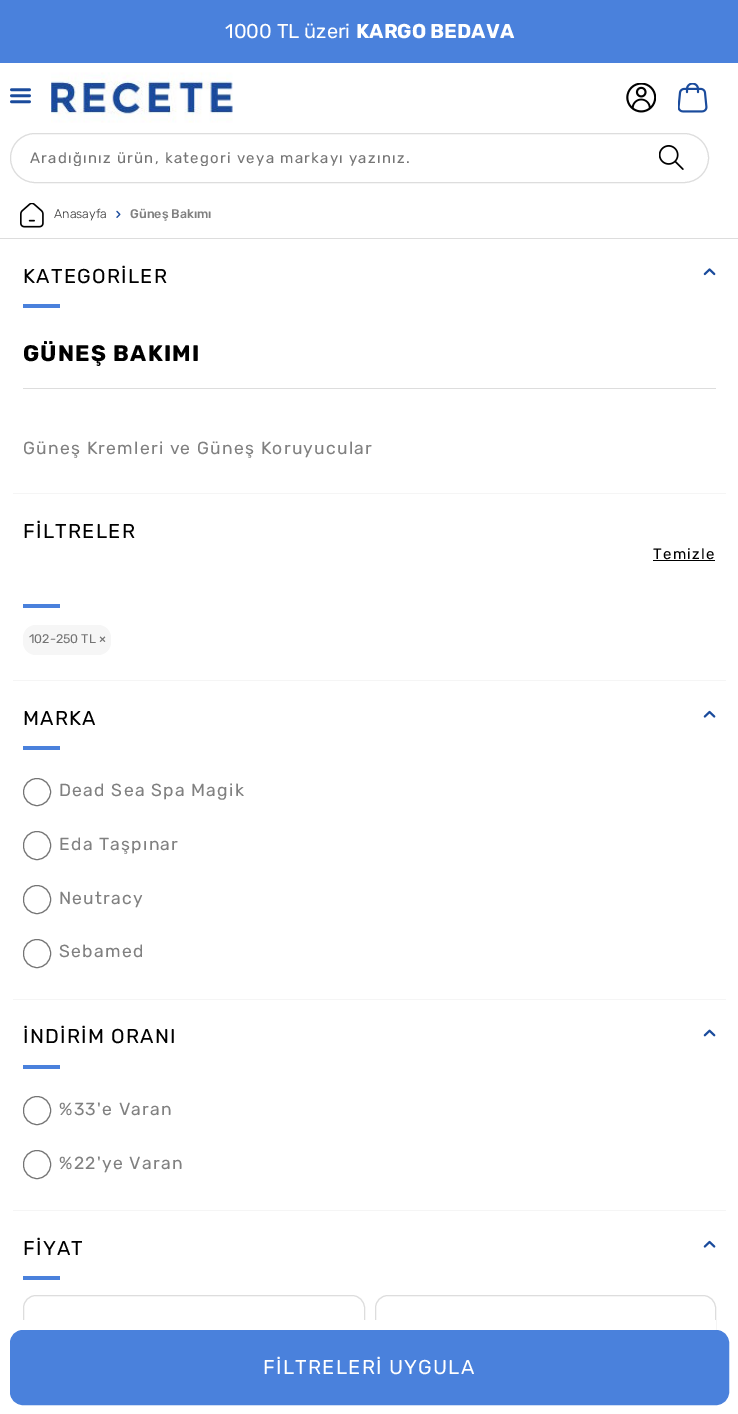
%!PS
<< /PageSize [738 1414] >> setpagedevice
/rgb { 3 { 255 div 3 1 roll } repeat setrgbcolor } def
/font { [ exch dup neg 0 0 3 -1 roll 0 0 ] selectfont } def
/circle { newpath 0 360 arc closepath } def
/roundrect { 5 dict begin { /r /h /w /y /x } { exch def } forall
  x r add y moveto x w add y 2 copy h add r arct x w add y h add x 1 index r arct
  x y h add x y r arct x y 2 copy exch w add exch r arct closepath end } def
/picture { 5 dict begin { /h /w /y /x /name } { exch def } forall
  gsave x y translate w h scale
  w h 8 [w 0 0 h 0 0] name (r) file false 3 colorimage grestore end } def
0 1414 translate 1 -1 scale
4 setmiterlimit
255 255 255 rgb
0 0 738 1414 rectfill
74 129 220 rgb
0 0 738 63 rectfill
(img/1.rgb) 10 88 21 16 picture
(img/2.rgb) 51 72 182 51 picture
(img/3.rgb) 626 83 30 30 picture
(img/4.rgb) 678 83 30 30 picture
221 221 221 rgb
10.5 133.5 698 49 24.5 roundrect stroke
(img/5.rgb) 659 145 25 25 picture
0 238 738 1 rectfill
(img/6.rgb) 20 203 24 25 picture
(img/7.rgb) 116 210 5 8 picture
245 245 245 rgb
13 493 713 1 rectfill
(img/8.rgb) 703 268 13 8 picture
[
  [23 304 37 4 74 129 220]
  [23 388 693 1 221 221 221]
  [13 680 713 1 245 245 245]
  [653 560 62 1 0 0 0]
  [23 604 37 4 74 129 220]
] { aload pop rgb rectfill } forall
246 246 246 rgb
23 625 88 30 13 roundrect fill
245 245 245 rgb
13 999 713 1 rectfill
(img/9.rgb) 703 710 13 8 picture
74 129 220 rgb
23 746 37 4 rectfill
116 116 116 rgb
37 792 13.5 circle stroke
23.5 831.5 27 28 13.5 roundrect stroke
23.5 885.5 27 28 13.5 roundrect stroke
23.5 939.5 27 28 13.5 roundrect stroke
245 245 245 rgb
13 1210 713 1 rectfill
(img/10.rgb) 703 1029 13 8 picture
74 129 220 rgb
23 1065 37 4 rectfill
116 116 116 rgb
23.5 1096.5 27 28 13.5 roundrect stroke
23.5 1150.5 27 28 13.5 roundrect stroke
(img/9.rgb) 703 1240 13 8 picture
74 129 220 rgb
23 1276 37 4 rectfill
221 221 221 rgb
23.5 1295.5 341 62 12.5 roundrect stroke
375.5 1295.5 340 62 12.5 roundrect stroke
255 255 255 rgb
23 1320 693 38 rectfill
74 129 220 rgb
10.5 1330.5 718 74 12.5 roundrect gsave fill grestore
stroke
/Rubik-Regular 20 font
255 255 255 rgb
225 38 moveto (1000 TL üzeri) show
/Rubik-Bold 20 font
356 38 moveto (KARGO BEDAVA) show
gsave
30 149 594 17 rectclip
/Rubik-Regular 15 font
116 116 116 rgb
30 163 moveto 1.25 0 (Aradığınız ürün, kategori veya markayı yazınız.) ashow
grestore
/Rubik-Light 12.5 font
55 55 56 rgb
54 218 moveto (Anasayfa) show
/Rubik-Medium 12.5 font
128 128 128 rgb
130 218 moveto (Güneş Bakımı) show
/Rubik-Regular 20 font
0 0 0 rgb
23 283 moveto 1.25 0 (KATEGORİLER) ashow
/Rubik-Bold 22.5 font
23 361 moveto 1.25 0 (GÜNEŞ BAKIMI) ashow
/Rubik-Regular 17.5 font
128 128 128 rgb
23 454 moveto 1.25 0 (Güneş Kremleri ve Güneş Koruyucular) ashow
/Rubik-Regular 20 font
0 0 0 rgb
23 538 moveto 1.25 0 (FİLTRELER) ashow
/Rubik-Regular 15 font
653 559 moveto 1.25 0 (Temizle) ashow
/Rubik-Regular 12.5 font
116 116 116 rgb
29 643 moveto (102-250 TL ×) show
/Rubik-Regular 20 font
0 0 0 rgb
23 725 moveto 1.25 0 (MARKA) ashow
/Rubik-Regular 17.5 font
128 128 128 rgb
59 796 moveto 1.25 0 (Dead Sea Spa Magik) ashow
59 850 moveto 1.25 0 (Eda Taşpınar) ashow
59 904 moveto 1.25 0 (Neutracy) ashow
59 957 moveto 1.25 0 (Sebamed) ashow
/Rubik-Regular 20 font
0 0 0 rgb
23 1043 moveto 1.25 0 (İNDİRİM ORANI) ashow
/Rubik-Regular 17.5 font
128 128 128 rgb
59 1115 moveto 1.25 0 (%33'e Varan) ashow
59 1169 moveto 1.25 0 (%22'ye Varan) ashow
/Rubik-Regular 20 font
0 0 0 rgb
23 1255 moveto 1.25 0 (FİYAT) ashow
255 255 255 rgb
263 1374 moveto 1.25 0 (FİLTRELERİ UYGULA) ashow
showpage
